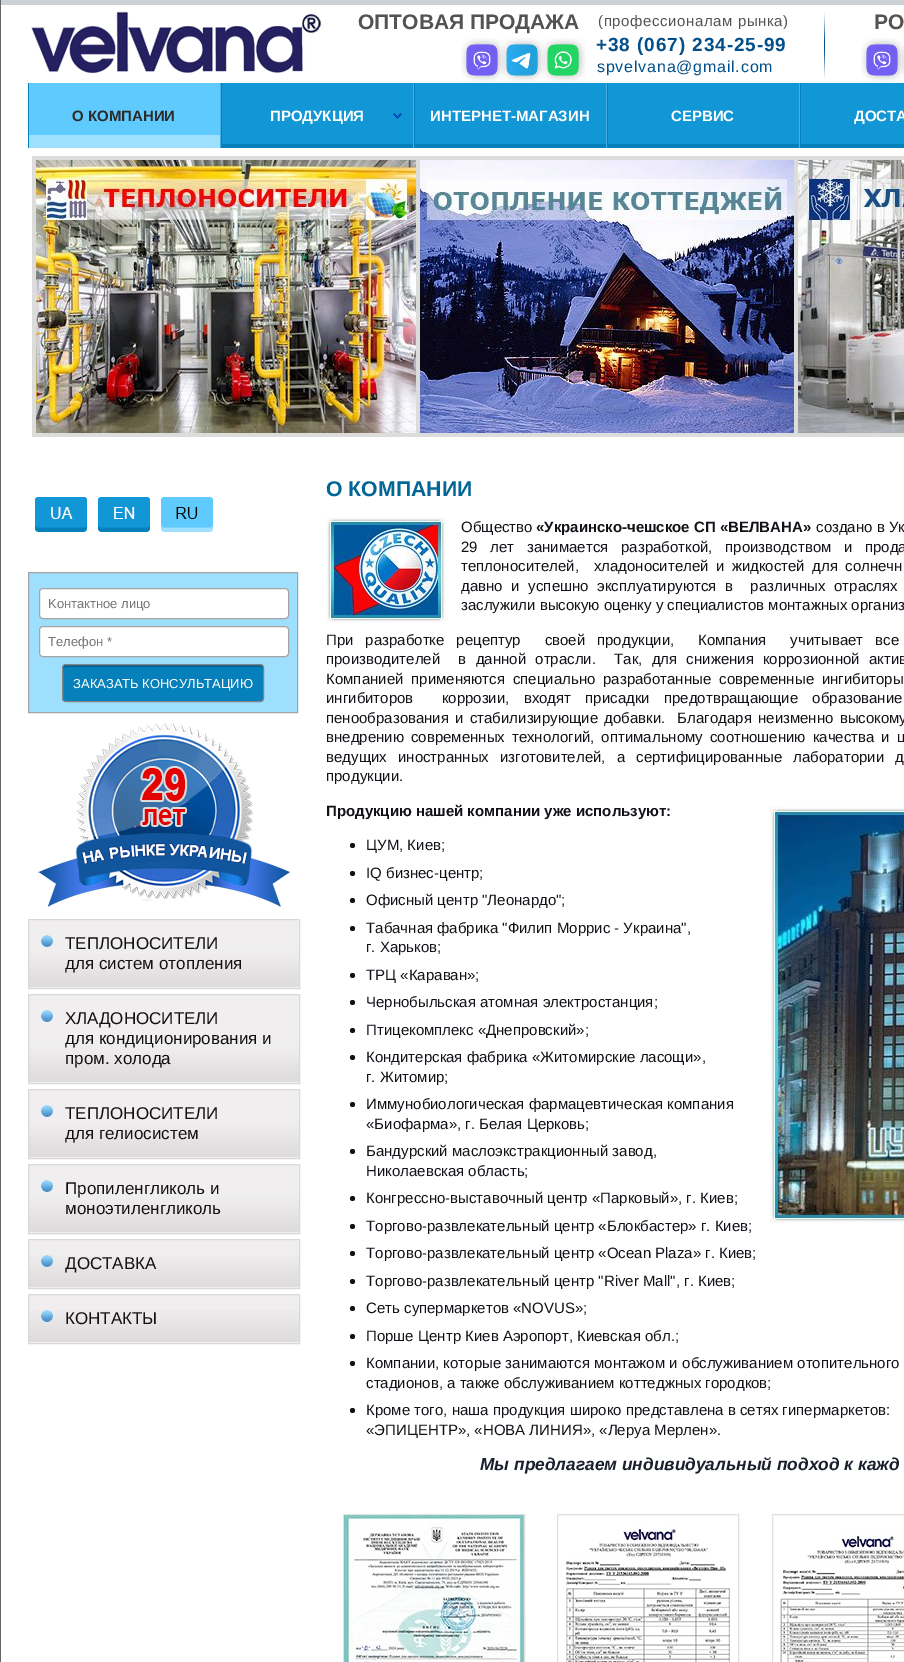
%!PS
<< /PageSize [904 1662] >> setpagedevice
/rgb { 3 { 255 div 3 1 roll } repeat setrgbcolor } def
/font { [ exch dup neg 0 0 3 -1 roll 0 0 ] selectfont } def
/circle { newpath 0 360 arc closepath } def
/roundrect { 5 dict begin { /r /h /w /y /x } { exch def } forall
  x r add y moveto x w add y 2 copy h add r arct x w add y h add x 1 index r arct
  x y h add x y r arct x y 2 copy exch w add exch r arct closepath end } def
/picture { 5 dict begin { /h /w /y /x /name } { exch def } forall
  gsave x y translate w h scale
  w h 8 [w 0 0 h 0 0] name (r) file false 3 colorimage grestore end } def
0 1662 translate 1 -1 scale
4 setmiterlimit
255 255 255 rgb
0 0 904 1662 rectfill
102 102 102 rgb
0 0 1 1662 rectfill
203 209 212 rgb
1 0 903 5 rectfill
(img/1.rgb) 31 11 291 63 picture
(img/2.rgb) 824 11 1 68 picture
(img/3.rgb) 461 38 44 44 picture
(img/4.rgb) 501 38 44 44 picture
(img/5.rgb) 542 38 44 44 picture
(img/6.rgb) 861 38 43 44 picture
(img/7.rgb) 901 46 3 28 picture
[
  [29 83 191 52 95 202 253]
  [29 135 191 13 159 223 254]
  [220 83 1 65 73 176 226]
  [28 83 1 65 5 128 186]
  [222 83 191 61 17 150 214]
  [221 144 683 4 5 128 186]
  [413 83 1 65 73 176 226]
  [221 83 1 65 5 128 186]
] { aload pop rgb rectfill } forall
(img/8.rgb) 393 113 9 6 picture
[
  [415 83 191 61 17 150 214]
  [606 83 1 65 73 176 226]
  [414 83 1 65 5 128 186]
  [608 83 191 61 17 150 214]
  [799 83 1 65 73 176 226]
  [607 83 1 65 5 128 186]
  [801 83 103 61 17 150 214]
  [800 83 1 65 5 128 186]
  [32 156 872 4 220 220 218]
  [416 156 2 281 220 220 218]
  [32 433 386 4 220 220 218]
  [32 156 4 281 220 220 218]
] { aload pop rgb rectfill } forall
(img/9.rgb) 36 160 380 273 picture
[
  [794 156 2 281 220 220 218]
  [418 433 486 4 220 220 218]
  [418 156 2 281 220 220 218]
] { aload pop rgb rectfill } forall
(img/10.rgb) 420 160 374 273 picture
796 156 2 281 rectfill
(img/11.rgb) 798 160 106 273 picture
(img/12.rgb) 35 497 52 35 picture
(img/13.rgb) 98 497 52 35 picture
(img/14.rgb) 161 497 52 35 picture
159 223 254 rgb
28.5 572.5 moveto 297.5 572.5 lineto 297.5 712.5 lineto 28.5 712.5 lineto closepath gsave fill grestore
165 165 165 rgb
stroke
255 255 255 rgb
39.5 588.5 249 30 3.5 roundrect gsave fill grestore
165 165 165 rgb
stroke
255 255 255 rgb
39.5 626.5 249 30 3.5 roundrect gsave fill grestore
165 165 165 rgb
stroke
5 128 186 rgb
62 664 202 38 4 roundrect fill
1 99 146 rgb
66 667 moveto 260 667 lineto 262 667 263 668 263 670 curveto 263 668 263 666 261 665 curveto 66 665 lineto 63 665 63 668 63 670 curveto 63 668 64 667 66 667 curveto closepath fill
132 132 132 rgb
62.5 664.5 201 37 3.5 roundrect stroke
(img/15.rgb) 38 723 252 184 picture
240 238 239 rgb
29 920 270 68 rectfill
(img/16.rgb) 29 935 270 52 picture
218 216 217 rgb
28.5 919.5 271 69 rectstroke
240 238 239 rgb
29 995 270 88 rectfill
(img/17.rgb) 29 1010 270 72 picture
218 216 217 rgb
28.5 994.5 271 89 rectstroke
240 238 239 rgb
29 1090 270 68 rectfill
(img/16.rgb) 29 1105 270 52 picture
218 216 217 rgb
28.5 1089.5 271 69 rectstroke
240 238 239 rgb
29 1165 270 68 rectfill
(img/16.rgb) 29 1180 270 52 picture
218 216 217 rgb
28.5 1164.5 271 69 rectstroke
240 238 239 rgb
29 1240 270 48 rectfill
(img/18.rgb) 29 1255 270 32 picture
218 216 217 rgb
28.5 1239.5 271 49 rectstroke
240 238 239 rgb
29 1295 270 48 rectfill
(img/18.rgb) 29 1310 270 32 picture
218 216 217 rgb
28.5 1294.5 271 49 rectstroke
(img/19.rgb) 326 517 120 106 picture
(img/20.rgb) 770 807 134 416 picture
18 17 23 rgb
352.5 845.5 2.5 circle fill
352.5 873.5 2.5 circle fill
352.5 900.5 2.5 circle fill
352.5 928.5 2.5 circle fill
352.5 975.5 2.5 circle fill
352.5 1002.5 2.5 circle fill
352.5 1030.5 2.5 circle fill
352.5 1057.5 2.5 circle fill
352.5 1104.5 2.5 circle fill
352.5 1151.5 2.5 circle fill
352.5 1198.5 2.5 circle fill
352.5 1226.5 2.5 circle fill
352.5 1253.5 2.5 circle fill
352.5 1281.5 2.5 circle fill
352.5 1308.5 2.5 circle fill
352.5 1336.5 2.5 circle fill
352.5 1363.5 2.5 circle fill
352.5 1410.5 2.5 circle fill
224 224 224 rgb
343.5 1514.5 181 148 rectstroke
(img/21.rgb) 344 1515 180 147 picture
557.5 1514.5 181 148 rectstroke
(img/22.rgb) 566 1523 168 139 picture
772.5 1514.5 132 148 rectstroke
(img/23.rgb) 780 1531 124 131 picture
/LiberationSans-Bold 21 font
83 83 83 rgb
358 29 moveto (ОПТОВАЯ ПРОДАЖА) show
/LiberationSans-Regular 15 font
598 26 moveto 0.6 0 (\(профессионалам рынка\)) ashow
/LiberationSans-Bold 19 font
2 79 138 rgb
596 51 moveto 0.9 0 (+38 \(067\) 234-25-99) ashow
/LiberationSans-Regular 16 font
597 72 moveto 0.8 0 (spvelvana@gmail.com) ashow
/LiberationSans-Bold 21 font
83 83 83 rgb
874 29 moveto (РО) show
/LiberationSans-Bold 15 font
43 43 43 rgb
72 121 moveto (О КОМПАНИИ) show
255 255 255 rgb
[
  [(ПРОДУКЦИЯ) 270 121]
  [(ИНТЕРНЕТ-МАГАЗИН) 430 121]
  [(СЕРВИС) 671 121]
  [(ДОСТА) 854 121]
] { aload pop moveto show } forall
/LiberationSans-Regular 13 font
117 117 117 rgb
48 608 moveto (Kонтактное лицо) show
48 646 moveto (Телефон *) show
255 255 255 rgb
73 688 moveto (ЗАКАЗАТЬ КОНСУЛЬТАЦИЮ) show
/LiberationSans-Regular 17 font
17 15 16 rgb
[
  [(ТЕПЛОНОСИТЕЛИ) 65 949]
  [(для систем отопления) 65 969]
  [(ХЛАДОНОСИТЕЛИ) 65 1024]
  [(для кондиционирования и) 65 1044]
  [(пром. холода) 65 1064]
  [(ТЕПЛОНОСИТЕЛИ) 65 1119]
  [(для гелиосистем) 65 1139]
  [(Пропиленгликоль и) 65 1194]
  [(моноэтиленгликоль) 65 1214]
  [(ДОСТАВКА) 65 1269]
  [(КОНТАКТЫ) 65 1324]
] { aload pop moveto show } forall
/LiberationSans-Bold 21.25 font
1 101 149 rgb
326 496 moveto (О КОМПАНИИ) show
/LiberationSans-Regular 15 font
18 17 23 rgb
461 532 moveto (Общество) show
/LiberationSans-Bold 15 font
536 532 moveto («Украинско-чешское СП «ВЕЛВАНА») show
/LiberationSans-Regular 15 font
816 532 moveto (создано в Ук) show
461 552 moveto 8.5 0 32 (29 лет занимается разработкой, производством и прода) widthshow
461 571 moveto 3.25 0 32 (теплоносителей,  хладоносителей и жидкостей для солнечн) widthshow
461 591 moveto 4.5 0 32 (давно и успешно эксплуатируются в  различных отраслях) widthshow
461 610 moveto (заслужили высокую оценку у специалистов монтажных организ) show
326 645 moveto 7.75 0 32 (При разработке рецептур  своей продукции,  Компания  учитывает все) widthshow
326 664 moveto 5 0 32 (производителей  в данной отрасли.  Так, для снижения коррозионной актив) widthshow
326 684 moveto 3.75 0 32 (Компанией применяются специально разработанные современные ингибиторы) widthshow
326 703 moveto 10 0 32 (ингибиторов  коррозии, входят присадки предотвращающие образование) widthshow
326 723 moveto 2 0 32 (пенообразования и стабилизирующие добавки.  Благодаря неизменно высокому) widthshow
326 742 moveto 2.75 0 32 (внедрению современных технологий, оптимальному соотношению качества и ц) widthshow
326 762 moveto 7 0 32 (ведущих иностранных изготовителей, а сертифицированные лаборатории д) widthshow
326 781 moveto (продукции.) show
/LiberationSans-Bold 15 font
326 816 moveto (Продукцию нашей компании уже используют:) show
/LiberationSans-Regular 15 font
[
  [(ЦУМ, Киев;) 366 850]
  [(IQ бизнес-центр;) 366 878]
  [(Офисный центр "Леонардо";) 366 905]
  [(Табачная фабрика "Филип Моррис - Украина",) 366 933]
  [(г. Харьков;) 366 952]
  [(ТРЦ «Караван»;) 366 980]
  [(Чернобыльская атомная электростанция;) 366 1007]
  [(Птицекомплекс «Днепровский»;) 366 1035]
  [(Кондитерская фабрика «Житомирские ласощи»,) 366 1062]
  [(г. Житомир;) 366 1082]
  [(Иммунобиологическая фармацевтическая компания) 366 1109]
  [(«Биофарма», г. Белая Церковь;) 366 1129]
  [(Бандурский маслоэкстракционный завод,) 366 1156]
  [(Николаевская область;) 366 1176]
  [(Конгрессно-выставочный центр «Парковый», г. Киев;) 366 1203]
  [(Торгово-развлекательный центр «Блокбастер» г. Киев;) 366 1231]
  [(Торгово-развлекательный центр «Ocean Plaza» г. Киев;) 366 1258]
  [(Торгово-развлекательный центр "River Mall", г. Киев;) 366 1286]
  [(Сеть супермаркетов «NOVUS»;) 366 1313]
  [(Порше Центр Киев Аэропорт, Киевская обл.;) 366 1341]
] { aload pop moveto show } forall
366 1368 moveto 0.25 0 32 (Компании, которые занимаются монтажом и обслуживанием отопительного) widthshow
[
  [(стадионов, а также обслуживанием коттеджных городков;) 366 1388]
  [(Кроме того, наша продукция широко представлена в сетях гипермаркетов:) 366 1415]
  [(«ЭПИЦЕНТР», «НОВА ЛИНИЯ», «Леруа Мерлен».) 366 1435]
] { aload pop moveto show } forall
/LiberationSans-BoldItalic 17.3 font
26 32 44 rgb
480 1470 moveto (Мы предлагаем индивидуальный подход к кажд) show
showpage
